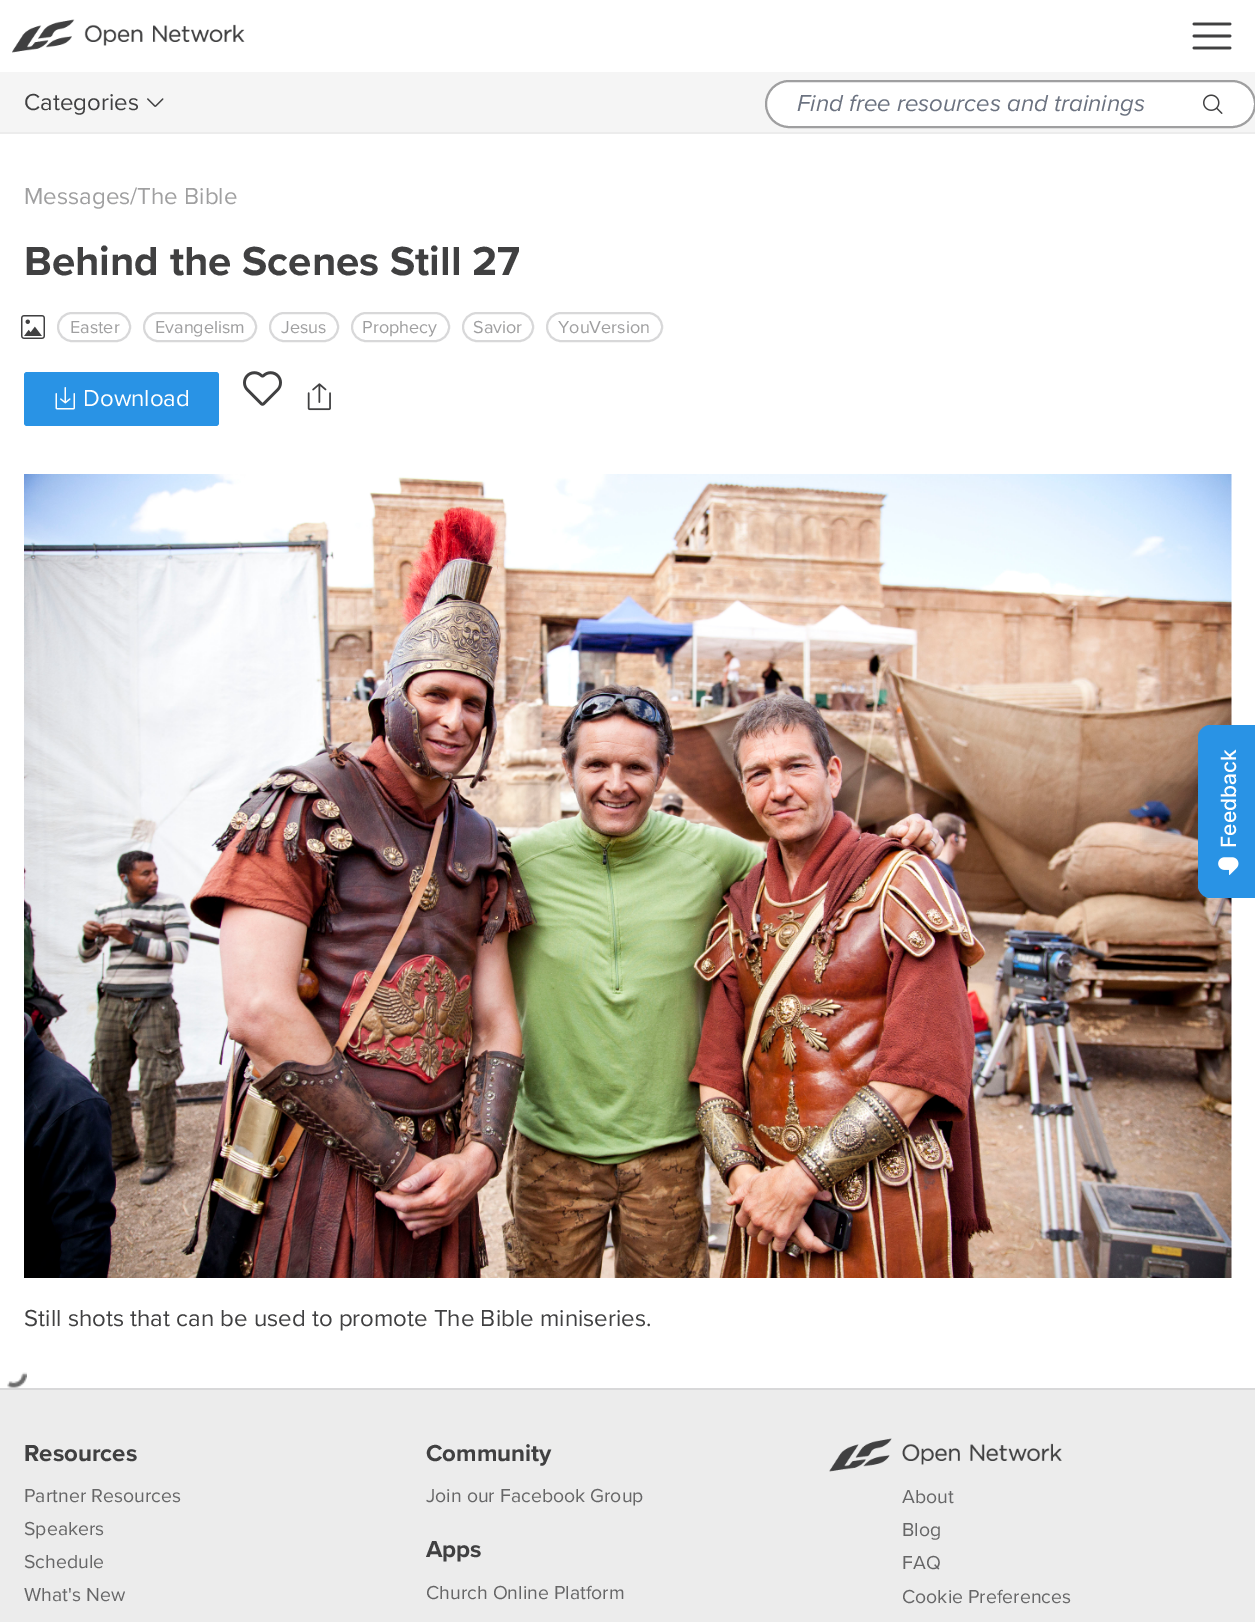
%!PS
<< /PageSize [1255 1622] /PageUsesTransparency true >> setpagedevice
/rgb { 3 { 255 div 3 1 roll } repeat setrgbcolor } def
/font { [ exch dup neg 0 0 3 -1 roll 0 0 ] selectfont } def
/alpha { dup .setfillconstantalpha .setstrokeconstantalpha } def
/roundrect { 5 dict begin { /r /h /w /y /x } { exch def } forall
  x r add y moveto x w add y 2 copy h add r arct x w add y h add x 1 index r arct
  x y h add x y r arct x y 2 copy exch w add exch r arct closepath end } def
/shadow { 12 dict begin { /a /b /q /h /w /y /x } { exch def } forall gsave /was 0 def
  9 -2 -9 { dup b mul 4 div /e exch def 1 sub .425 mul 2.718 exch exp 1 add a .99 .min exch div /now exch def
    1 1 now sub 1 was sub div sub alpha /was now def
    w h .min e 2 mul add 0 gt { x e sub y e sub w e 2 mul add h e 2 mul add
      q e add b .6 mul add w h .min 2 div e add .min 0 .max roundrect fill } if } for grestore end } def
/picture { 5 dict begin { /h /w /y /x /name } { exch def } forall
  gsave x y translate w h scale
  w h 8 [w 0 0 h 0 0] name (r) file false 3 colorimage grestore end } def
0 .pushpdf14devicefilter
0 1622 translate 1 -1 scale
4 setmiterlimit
255 255 255 rgb
0 0 1255 1622 rectfill
(img/1.rgb) 12 19 233 34 picture
(img/2.rgb) 1192 22 40 28 picture
236 236 236 rgb
0 132 moveto 0 134 lineto 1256 134 lineto 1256 74 lineto 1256 132 lineto closepath fill
245 245 245 rgb
0 72 1255 60 rectfill
(img/3.rgb) 147 98 17 9 picture
255 255 255 rgb
766 81 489 46 23 roundrect gsave fill grestore
159 159 160 rgb
2 setlinewidth
stroke
(img/4.rgb) 1203 94 20 20 picture
(img/5.rgb) 21 315 24 24 picture
216 216 217 rgb
58 313 72 28 14 roundrect stroke
144 313 112 28 14 roundrect stroke
270 313 68 28 14 roundrect stroke
352 313 97 28 14 roundrect stroke
463 313 70 28 14 roundrect stroke
547 313 115 28 14 roundrect stroke
41 147 229 rgb
24 372 195 54 3 roundrect fill
(img/6.rgb) 55 387 20 23 picture
(img/7.rgb) 243 371 39 35 picture
(img/8.rgb) 307 383 24 28 picture
(img/9.rgb) 24 474 1208 804 picture
(img/10.rgb) 7 1372 20 16 picture
0 0 0 rgb
1143 782 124 60 0 4 0.1 shadow
41 147 229 rgb
1198 886 moveto 1198 737 lineto 1198 731 1204 725 1210 725 curveto 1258 725 lineto 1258 898 lineto 1210 898 lineto 1204 898 1198 892 1198 886 curveto closepath fill
(img/11.rgb) 1218 857 21 18 picture
236 236 236 rgb
0 1390 1255 232 rectfill
216 216 217 rgb
0 1388 1255 2 rectfill
(img/12.rgb) 829 1438 233 34 picture
/ProximaNova-Regular 24 font
64 64 65 rgb
24 110 moveto (Categories) show
/ProximaNova-Italic 24 font
107 114 128 rgb
797 111 moveto (Find free resources and trainings) show
/ProximaNova-Regular 24 font
159 159 160 rgb
24 204 moveto (Messages/The Bible) show
/ProximaNova-Bold 42 font
64 64 65 rgb
24 275 moveto (Behind the Scenes Still 27) show
/ProximaNova-Regular 18 font
159 159 160 rgb
[
  [(Easter) 70 333]
  [(Evangelism) 155 333]
  [(Jesus) 281 333]
  [(Prophecy) 362 333]
  [(Savior) 473 333]
  [(YouVersion) 558 333]
] { aload pop moveto show } forall
/ProximaNova-Regular 24 font
255 255 255 rgb
83 406 moveto (Download) show
64 64 65 rgb
24 1326 moveto (Still shots that can be used to promote The Bible miniseries.) show
/Inter-Medium 21 font
255 255 255 rgb
gsave 1236 848 translate -90 rotate 0 0 moveto (Feedback) show grestore
/ProximaNova-Bold 24 font
64 64 65 rgb
24 1461 moveto (Resources) show
/ProximaNova-Regular 19.5 font
102 102 103 rgb
[
  [(Partner Resources) 24 1502]
  [(Speakers) 24 1535]
  [(Schedule) 24 1568]
  [(What's New) 24 1601]
] { aload pop moveto show } forall
/ProximaNova-Bold 24 font
64 64 65 rgb
426 1461 moveto (Community) show
/ProximaNova-Regular 19.5 font
102 102 103 rgb
426 1502 moveto (Join our Facebook Group) show
/ProximaNova-Bold 24 font
64 64 65 rgb
426 1557 moveto (Apps) show
/ProximaNova-Regular 19.5 font
102 102 103 rgb
[
  [(Church Online Platform) 426 1599]
  [(About) 902 1503]
  [(Blog) 902 1536]
  [(FAQ) 902 1569]
  [(Cookie Preferences) 902 1603]
] { aload pop moveto show } forall
.poppdf14devicefilter showpage
